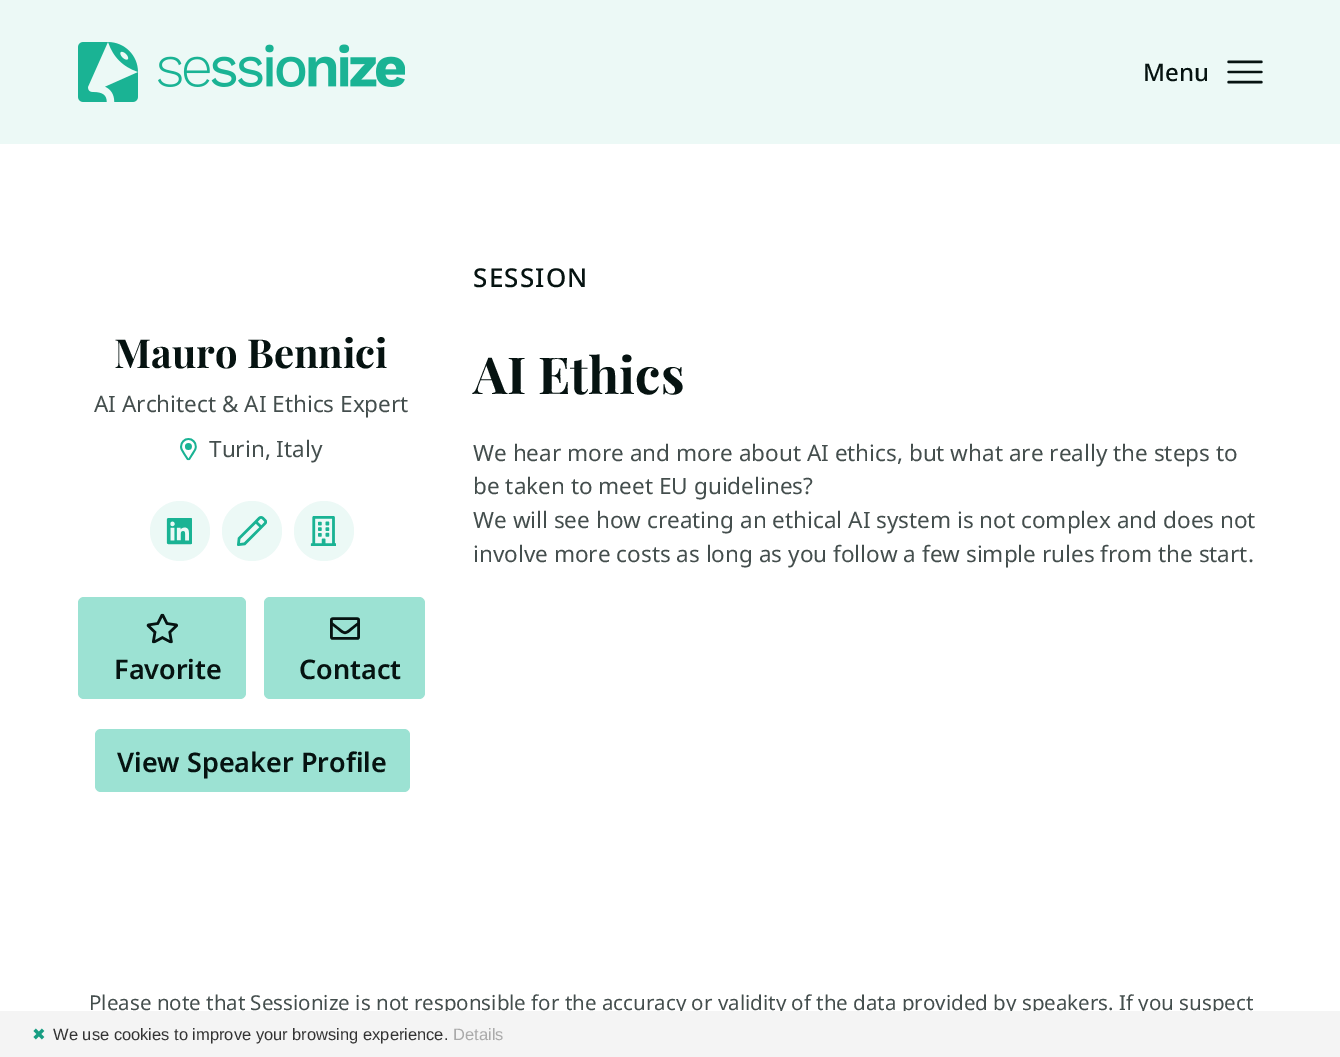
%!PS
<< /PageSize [1340 1057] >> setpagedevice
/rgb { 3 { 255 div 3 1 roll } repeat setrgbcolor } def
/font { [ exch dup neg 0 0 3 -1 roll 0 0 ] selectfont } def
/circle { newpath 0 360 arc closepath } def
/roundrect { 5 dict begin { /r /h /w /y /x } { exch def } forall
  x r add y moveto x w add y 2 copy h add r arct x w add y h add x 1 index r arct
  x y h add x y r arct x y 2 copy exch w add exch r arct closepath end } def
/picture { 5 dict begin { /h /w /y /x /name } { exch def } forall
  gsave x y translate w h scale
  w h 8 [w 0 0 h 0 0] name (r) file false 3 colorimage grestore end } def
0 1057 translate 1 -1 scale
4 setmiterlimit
255 255 255 rgb
0 0 1340 1057 rectfill
236 249 246 rgb
0 0 1340 144 rectfill
(img/1.rgb) 78 42 327 60 picture
(img/2.rgb) 1227 60 36 24 picture
(img/3.rgb) 180 438 17 23 picture
180 531 30 circle fill
(img/4.rgb) 166 518 26 27 picture
252 531 30 circle fill
(img/5.rgb) 237 516 30 30 picture
324 531 30 circle fill
(img/6.rgb) 310 516 26 30 picture
156 226 211 rgb
78 597 168 102 6 roundrect fill
(img/7.rgb) 146 613 32 31 picture
264 597 161 102 6 roundrect fill
(img/8.rgb) 330 617 30 23 picture
95 729 315 63 6 roundrect fill
/NotoSans-Medium 24 font
6 19 17 rgb
1143 81 moveto (Menu) show
/PlayfairDisplay-Bold 40 font
114 368 moveto (Mauro Bennici) show
/NotoSans-Regular 22.55 font
68 78 77 rgb
94 412 moveto (AI Architect & AI Ethics Expert) show
209 457 moveto (Turin, Italy) show
/NotoSans-SemiBold 27 font
6 19 17 rgb
[
  [(Favorite) 114 679]
  [(Contact) 299 679]
  [(View Speaker Profile) 117 772]
] { aload pop moveto show } forall
/NotoSans-Medium 26 font
473 287 moveto 1.25 0 (SESSION) ashow
/PlayfairDisplay-Bold 51 font
473 394 moveto (AI Ethics) show
/NotoSans-Regular 22.55 font
68 78 77 rgb
[
  [(We hear more and more about AI ethics, but what are really the steps to) 473 461]
  [(be taken to meet EU guidelines?) 473 494]
  [(We will see how creating an ethical AI system is not complex and does not) 473 528]
  [(involve more costs as long as you follow a few simple rules from the start.) 473 562]
] { aload pop moveto show } forall
/NotoSans-Regular 20.55 font
89 1010 moveto (Please note that Sessionize is not responsible for the accuracy or validity of the data provided by speakers. If you suspect) show
244 244 244 rgb
0 1011 1340 46 rectfill
/DejaVuSans-Regular 16.5 font
23 157 130 rgb
32 1040 moveto (✖) show
/LiberationSans-Regular 16.5 font
51 51 51 rgb
53 1040 moveto (We use cookies to improve your browsing experience.) show
170 170 170 rgb
453 1040 moveto (Details) show
showpage
